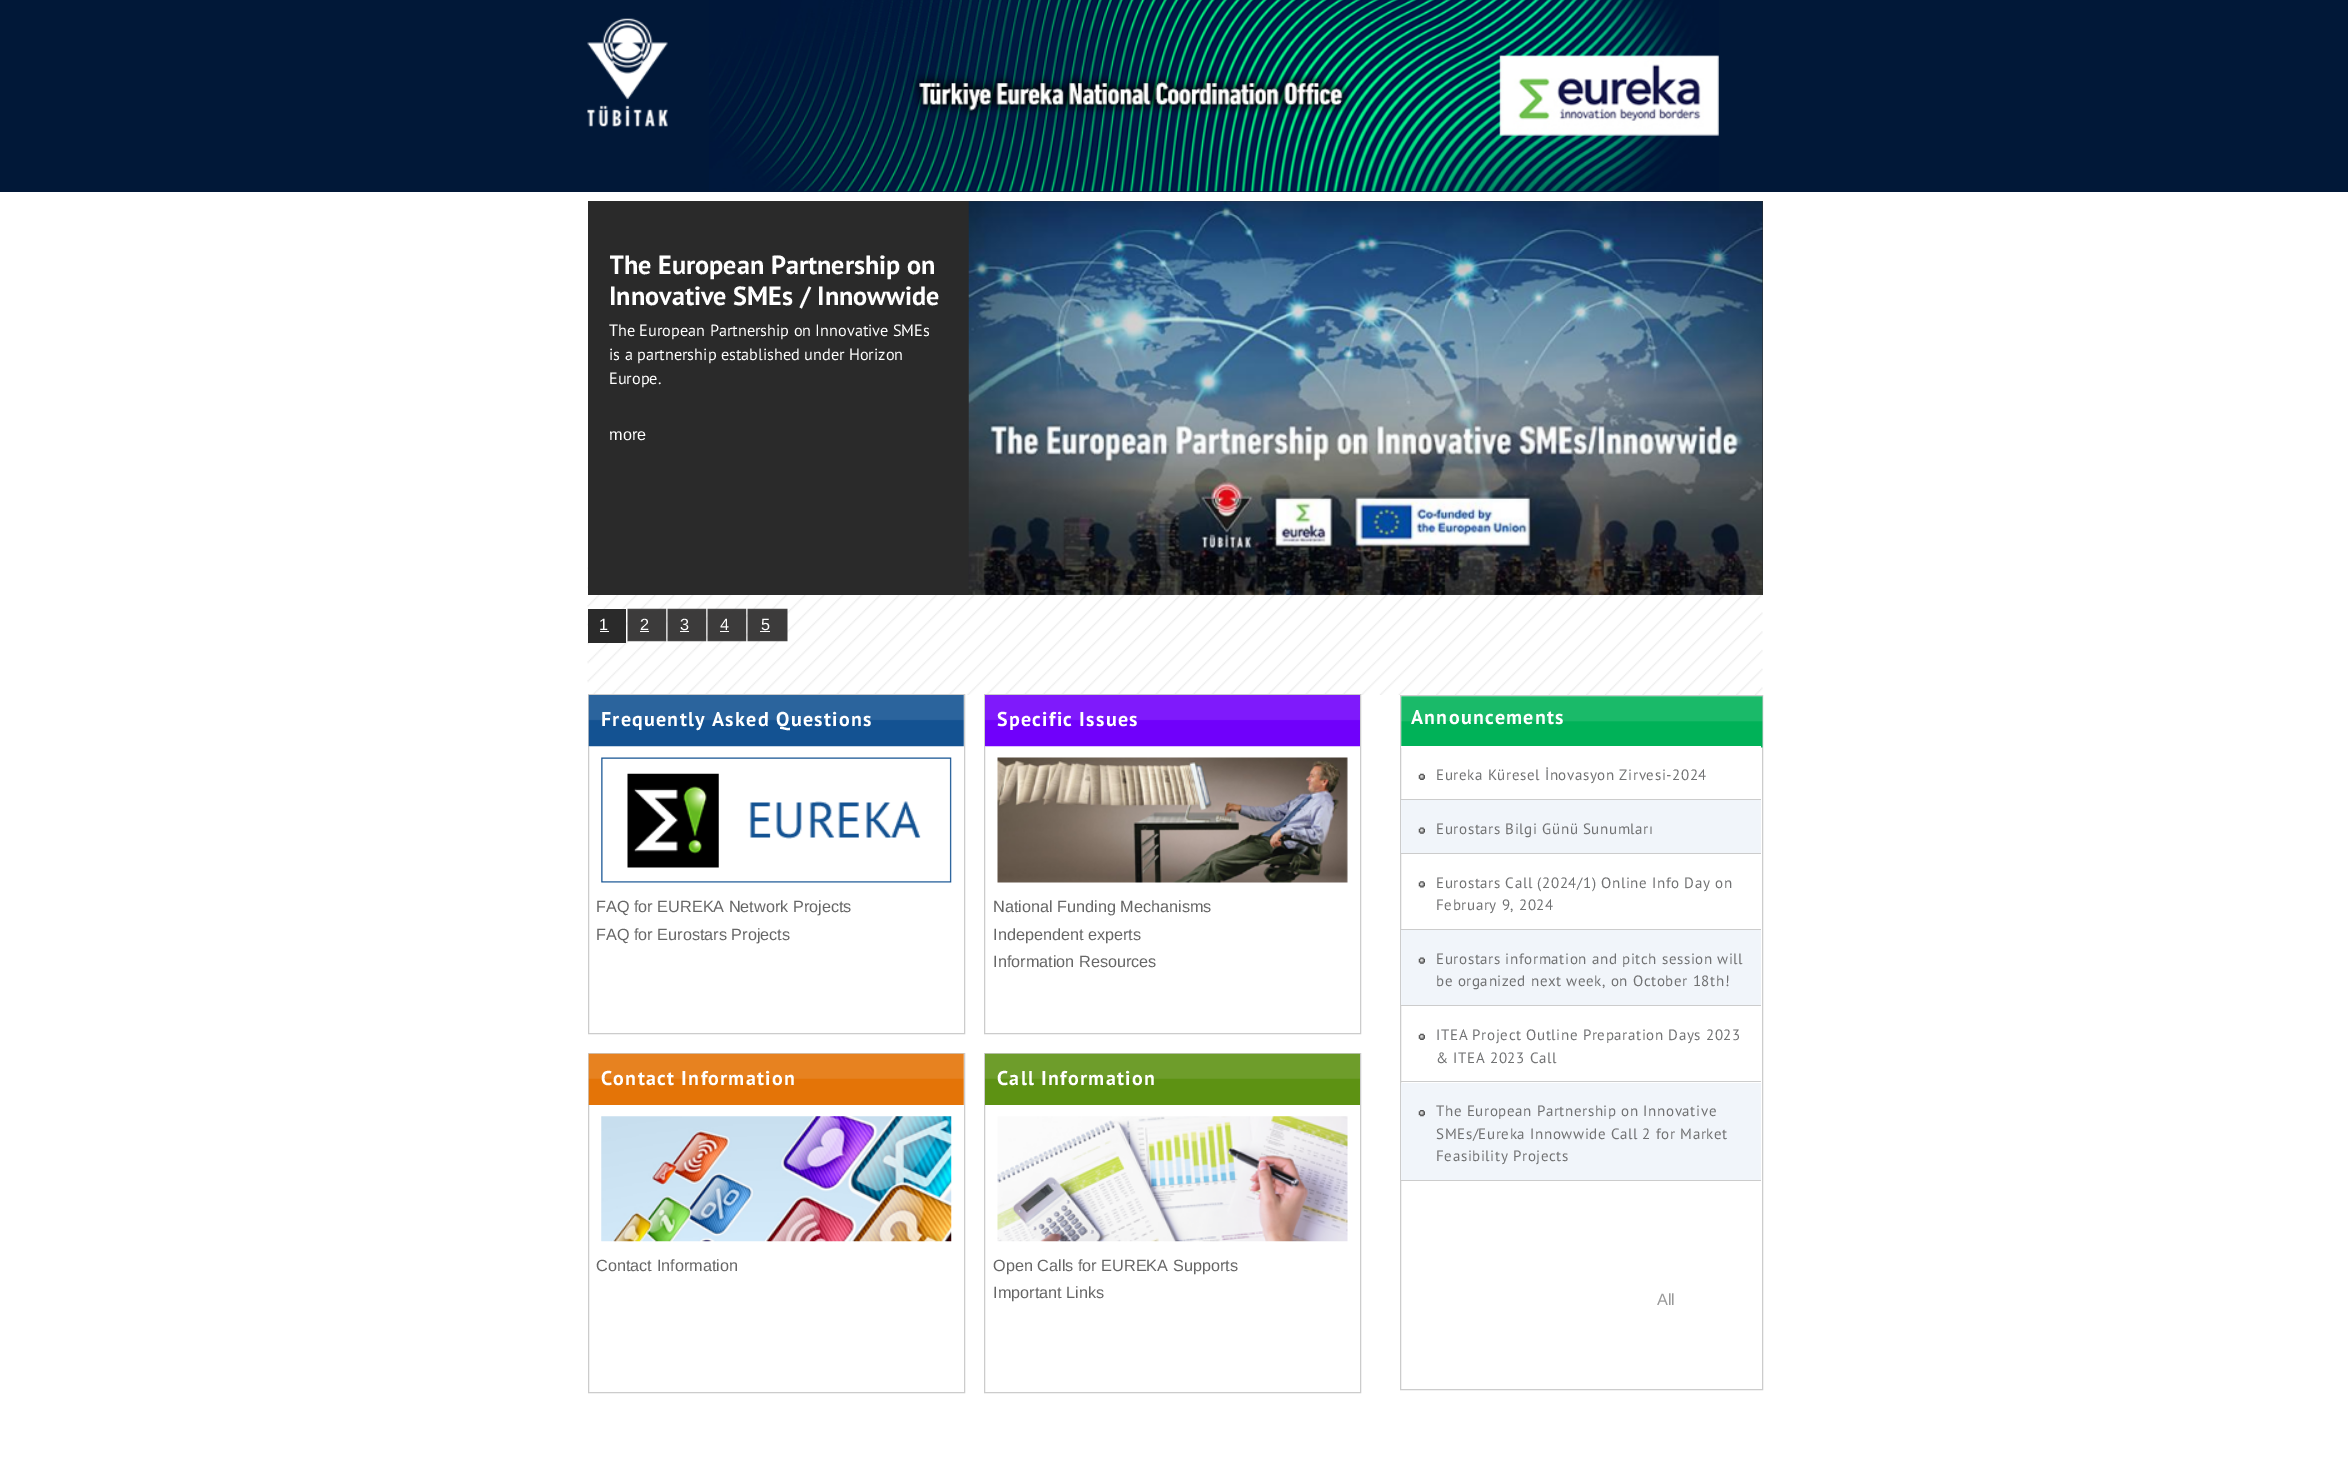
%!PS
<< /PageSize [2348 1483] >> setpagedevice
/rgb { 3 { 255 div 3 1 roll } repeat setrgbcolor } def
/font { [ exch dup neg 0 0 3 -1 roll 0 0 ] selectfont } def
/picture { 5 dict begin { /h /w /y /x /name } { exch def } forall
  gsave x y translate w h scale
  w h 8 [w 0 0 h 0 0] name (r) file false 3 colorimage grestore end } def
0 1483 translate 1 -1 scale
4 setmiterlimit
255 255 255 rgb
0 0 2348 1483 rectfill
1 24 56 rgb
0 0 2348 192 rectfill
(img/1.rgb) 709 0 1010 192 picture
(img/2.rgb) 587 18 81 109 picture
(img/3.rgb) 587 560 1176 135 picture
42 42 42 rgb
588 201 1175 394 rectfill
(img/4.rgb) 968 201 795 394 picture
588 609 38 34 rectfill
255 255 255 rgb
600 631 9 1 rectfill
(img/5.rgb) 627 608 40 34 picture
640 631 9 1 rectfill
(img/6.rgb) 667 608 40 34 picture
680 631 9 1 rectfill
(img/7.rgb) 707 608 40 34 picture
720 631 9 1 rectfill
(img/8.rgb) 747 608 41 34 picture
760 631 10 1 rectfill
(img/9.rgb) 601 757 351 126 picture
204 204 204 rgb
588.5 694.5 376 339 rectstroke
(img/10.rgb) 588 695 376 52 picture
(img/11.rgb) 997 757 351 126 picture
984.5 694.5 376 339 rectstroke
(img/12.rgb) 985 695 375 52 picture
(img/13.rgb) 601 1116 351 126 picture
588.5 1053.5 376 339 rectstroke
(img/14.rgb) 588 1053 376 52 picture
(img/15.rgb) 997 1116 351 126 picture
984.5 1053.5 376 339 rectstroke
(img/16.rgb) 985 1053 375 52 picture
1400.5 695.5 362 694 rectstroke
(img/17.rgb) 1401 696 362 52 picture
1400 799 361 1 rectfill
255 255 255 rgb
1401 746 360 2 rectfill
(img/18.rgb) 1418 773 7 7 picture
204 204 204 rgb
1400 853 361 1 rectfill
241 245 250 rgb
1401 800 360 53 rectfill
(img/19.rgb) 1418 827 7 7 picture
204 204 204 rgb
1400 929 361 1 rectfill
(img/20.rgb) 1418 881 7 7 picture
1400 1005 361 1 rectfill
241 245 250 rgb
1401 930 360 75 rectfill
(img/19.rgb) 1418 957 7 7 picture
204 204 204 rgb
1400 1081 361 1 rectfill
(img/18.rgb) 1418 1033 7 7 picture
1400 1180 361 1 rectfill
241 245 250 rgb
1401 1083 360 97 rectfill
(img/21.rgb) 1418 1110 7 7 picture
gsave
610 249 335 62 rectclip
/PTSans-Bold 26.25 font
255 255 255 rgb
609 274 moveto (The European Partnership on) show
grestore
/PTSans-Bold 26.25 font
255 255 255 rgb
609 305 moveto (Innovative SMEs / Innowwide) show
/PTSans-Regular 16.25 font
[
  [(The European Partnership on Innovative SMEs) 609 336]
  [(is a partnership established under Horizon) 609 360]
  [(Europe.) 609 384]
] { aload pop moveto show } forall
/LiberationSans-Regular 16.25 font
[
  [(more) 609 440]
  [(1) 599 630]
  [(2) 640 630]
  [(3) 680 630]
  [(4) 720 630]
  [(5) 761 630]
] { aload pop moveto show } forall
/PTSans-Bold 20 font
601 726 moveto 1.25 0 (Frequently Asked Questions) ashow
/LiberationSans-Regular 16.25 font
102 102 102 rgb
596 912 moveto (FAQ for EUREKA Network Projects) show
596 940 moveto (FAQ for Eurostars Projects) show
/PTSans-Bold 20 font
255 255 255 rgb
997 726 moveto 1.25 0 (Specific Issues) ashow
/LiberationSans-Regular 16.25 font
102 102 102 rgb
[
  [(National Funding Mechanisms) 993 912]
  [(Independent experts) 993 940]
  [(Information Resources) 993 967]
] { aload pop moveto show } forall
/PTSans-Bold 20 font
255 255 255 rgb
601 1085 moveto 1.25 0 (Contact Information) ashow
/LiberationSans-Regular 16.25 font
102 102 102 rgb
596 1271 moveto (Contact Information) show
/PTSans-Bold 20 font
255 255 255 rgb
997 1085 moveto 1.25 0 (Call Information) ashow
/LiberationSans-Regular 16.25 font
102 102 102 rgb
993 1271 moveto (Open Calls for EUREKA Supports) show
993 1298 moveto (Important Links) show
/PTSans-Bold 20 font
255 255 255 rgb
1411 724 moveto 1.25 0 (Announcements) ashow
/PTSans-Regular 15 font
113 114 115 rgb
1436 780 moveto 0.6 0 (Eureka Küresel İnovasyon Zirvesi-2024) ashow
1436 834 moveto 0.6 0 (Eurostars Bilgi Günü Sunumları) ashow
1436 888 moveto 0.6 0 (Eurostars Call \(2024/1\) Online Info Day on) ashow
1436 910 moveto 0.6 0 (February 9, 2024) ashow
1436 964 moveto 0.6 0 (Eurostars information and pitch session will) ashow
1436 986 moveto 0.6 0 (be organized next week, on October 18th!) ashow
1436 1040 moveto 0.6 0 (ITEA Project Outline Preparation Days 2023) ashow
1436 1063 moveto 0.6 0 (& ITEA 2023 Call) ashow
1436 1116 moveto 0.6 0 (The European Partnership on Innovative) ashow
1436 1139 moveto 0.6 0 (SMEs/Eureka Innowwide Call 2 for Market) ashow
1436 1161 moveto 0.6 0 (Feasibility Projects) ashow
/LiberationSans-Regular 16.25 font
153 153 153 rgb
1657 1305 moveto (All) show
showpage
